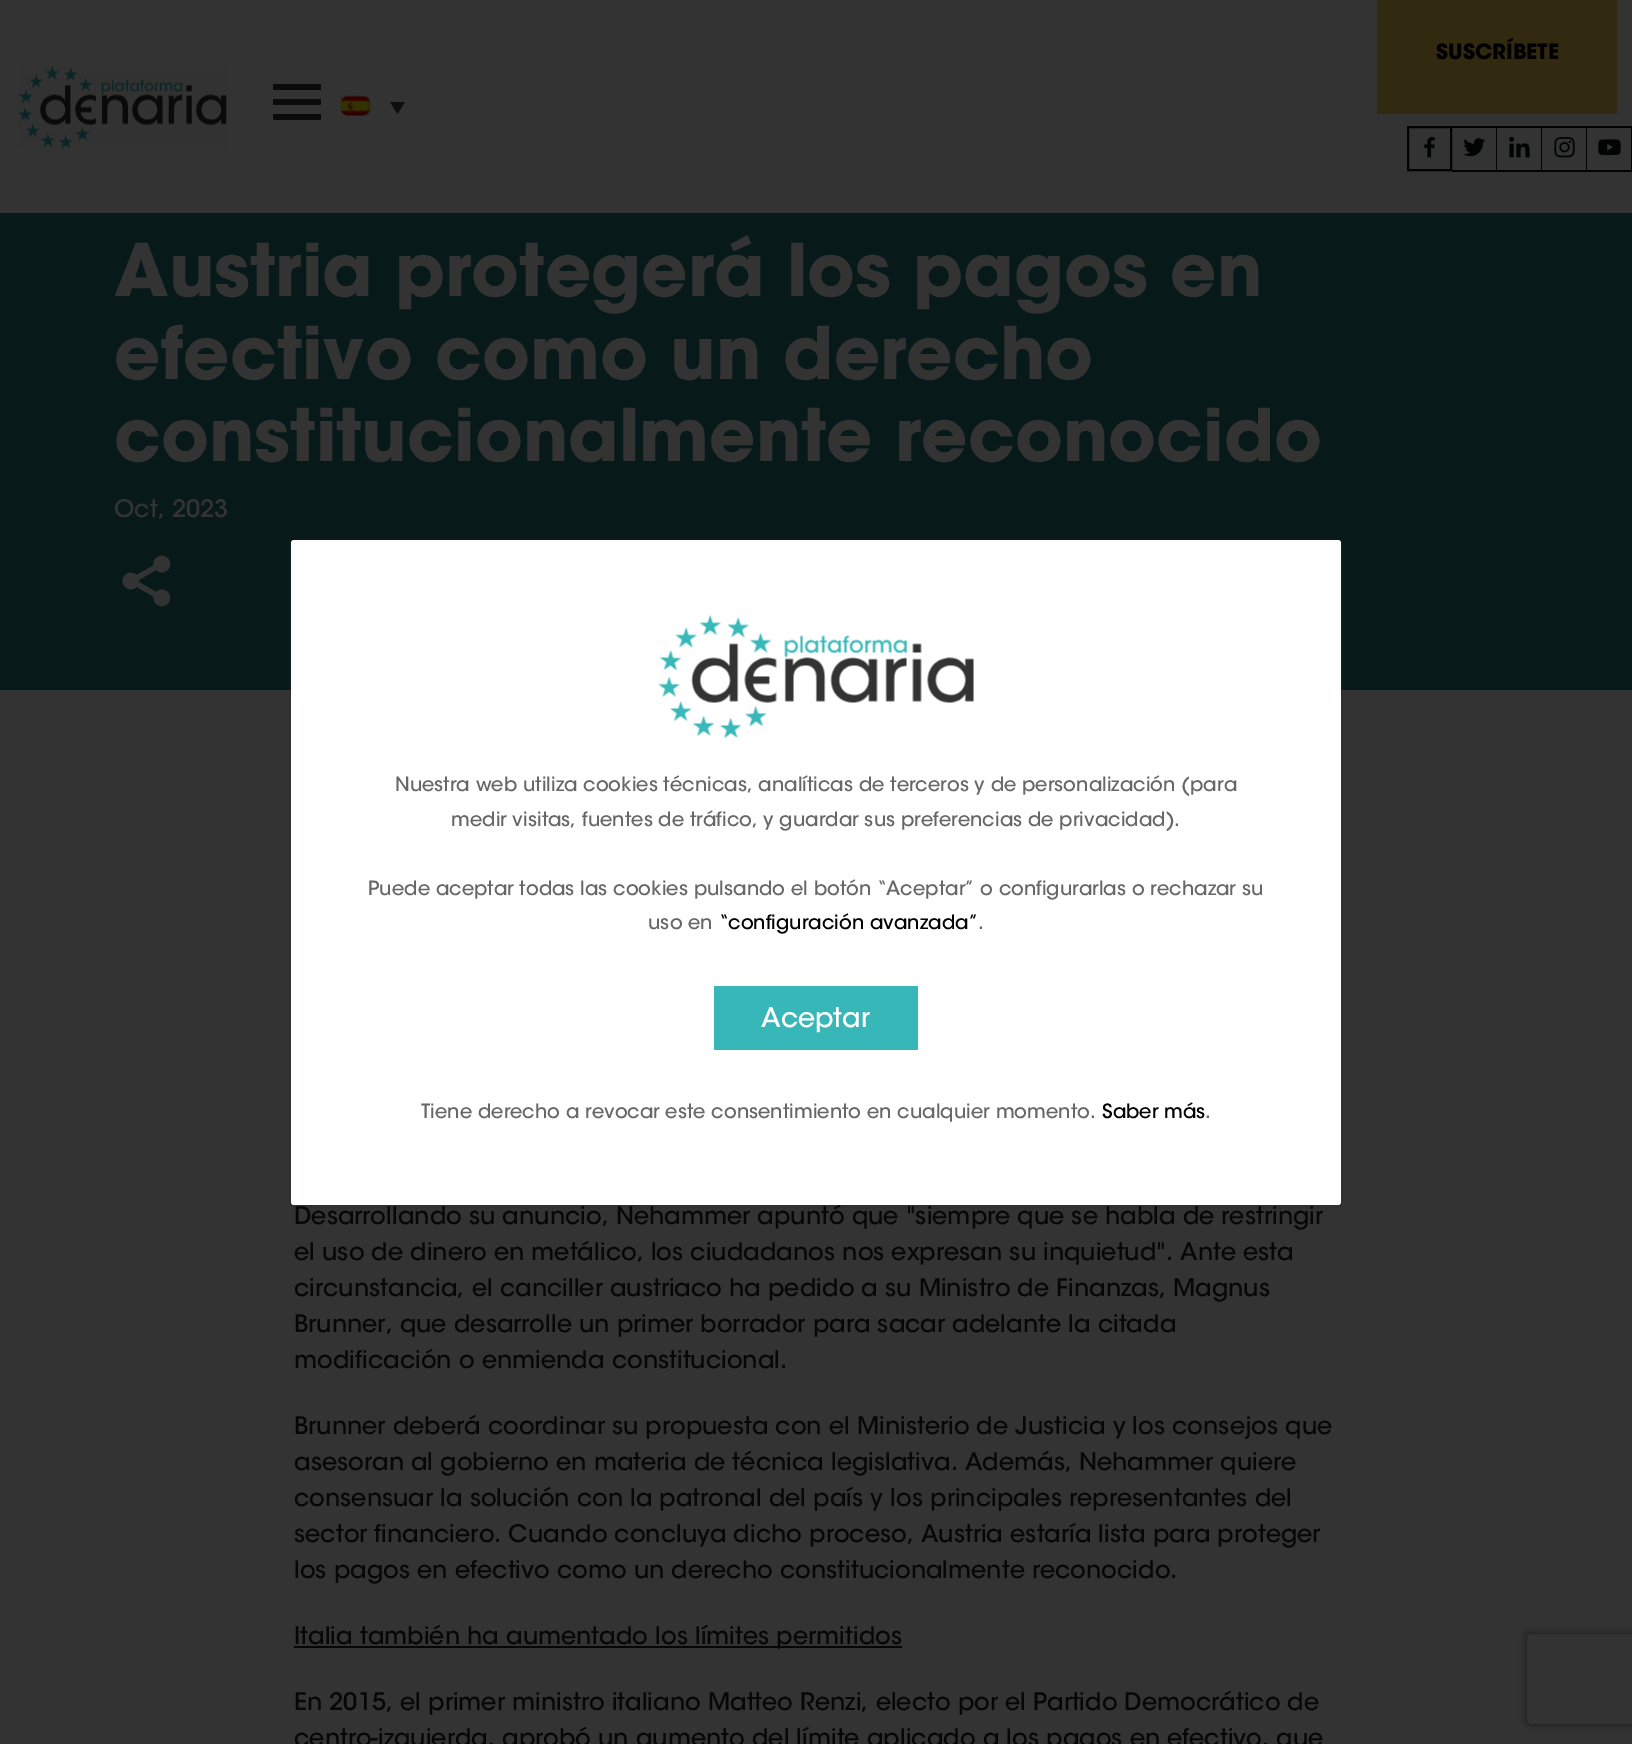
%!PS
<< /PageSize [1632 1744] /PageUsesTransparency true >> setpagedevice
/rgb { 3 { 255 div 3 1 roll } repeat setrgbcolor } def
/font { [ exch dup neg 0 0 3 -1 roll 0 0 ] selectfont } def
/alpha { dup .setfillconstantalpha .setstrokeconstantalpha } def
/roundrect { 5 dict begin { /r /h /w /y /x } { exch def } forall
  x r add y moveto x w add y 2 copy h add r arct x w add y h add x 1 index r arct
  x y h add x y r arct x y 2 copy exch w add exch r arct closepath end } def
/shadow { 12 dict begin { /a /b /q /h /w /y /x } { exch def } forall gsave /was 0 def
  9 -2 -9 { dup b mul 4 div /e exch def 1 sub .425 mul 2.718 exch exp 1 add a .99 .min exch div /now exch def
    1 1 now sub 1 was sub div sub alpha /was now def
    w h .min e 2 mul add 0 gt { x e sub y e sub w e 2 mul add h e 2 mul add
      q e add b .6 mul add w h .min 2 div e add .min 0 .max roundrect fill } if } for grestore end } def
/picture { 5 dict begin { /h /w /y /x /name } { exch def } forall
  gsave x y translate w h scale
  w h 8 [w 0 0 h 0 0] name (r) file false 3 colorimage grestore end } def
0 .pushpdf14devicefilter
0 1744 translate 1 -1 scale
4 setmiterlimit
51 51 51 rgb
0 0 1632 1744 rectfill
50 41 17 rgb
1377 0 240 114 rectfill
1 4 3 rgb
2 setlinewidth
1408 127 43 43 rectstroke
(img/1.rgb) 1424 137 11 21 picture
[
  [1452 126 180 2 1 4 3]
  [1496 126 1 45 1 4 3]
  [1452 170 45 2 1 4 3]
] { aload pop rgb rectfill } forall
(img/2.rgb) 1463 138 23 19 picture
1541 126 1 45 rectfill
1497 170 45 2 rectfill
(img/3.rgb) 1509 136 21 22 picture
1586 126 1 45 rectfill
1542 170 45 2 rectfill
(img/4.rgb) 1554 137 21 21 picture
1631 126 1 45 rectfill
1587 170 45 2 rectfill
(img/5.rgb) 1598 139 23 17 picture
(img/6.rgb) 18 66 209 83 picture
10 10 10 rgb
273 84 48 6 1.5 roundrect fill
273 99 48 6 1.5 roundrect fill
273 114 48 6 1.5 roundrect fill
(img/7.rgb) 340 95 31 21 picture
14 14 14 rgb
390 102 moveto 405 102 lineto 397.5 114 lineto closepath fill
8 25 26 rgb
0 213 1632 477 rectfill
(img/8.rgb) 122 555 49 52 picture
7 7 8 rgb
294 1646 608 2 rectfill
33 41 52 rgb
291 542 1050 664 3 2 0.75 shadow
gsave
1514 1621 moveto 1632 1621 lineto 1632 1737 lineto 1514 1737 lineto closepath 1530 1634 moveto 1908 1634 lineto 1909.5 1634 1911 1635.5 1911 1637 curveto 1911 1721 lineto 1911 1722.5 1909.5 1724 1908 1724 curveto 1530 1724 lineto 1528.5 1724 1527 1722.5 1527 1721 curveto 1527 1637 lineto 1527 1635.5 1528.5 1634 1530 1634 curveto closepath eoclip newpath
26 26 26 rgb
1527 1634 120 90 3 4 1 shadow
grestore
/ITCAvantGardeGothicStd-Bold 21 font
0 0 0 rgb
1436 59 moveto (SUSCRÍBETE) show
/ITCAvantGardeGothicStd-Bold 72 font
51 51 51 rgb
[
  [(Austria protegerá los pagos en) 114 296]
  [(efectivo como un derecho) 114 379]
  [(constitucionalmente reconocido) 114 461]
] { aload pop moveto show } forall
/ITCAvantGardeGothicStd-Medium 24 font
114 517 moveto (Oct, 2023) show
7 7 8 rgb
[
  [(Desarrollando su anuncio, Nehammer apuntó que "siempre que se habla de restringir) 294 1224]
  [(el uso de dinero en metálico, los ciudadanos nos expresan su inquietud". Ante esta) 294 1260]
  [(circunstancia, el canciller austriaco ha pedido a su Ministro de Finanzas, Magnus) 294 1296]
  [(Brunner, que desarrolle un primer borrador para sacar adelante la citada) 294 1332]
  [(modificación o enmienda constitucional.) 294 1368]
  [(Brunner deberá coordinar su propuesta con el Ministerio de Justicia y los consejos que) 294 1434]
  [(asesoran al gobierno en materia de técnica legislativa. Además, Nehammer quiere) 294 1470]
  [(consensuar la solución con la patronal del país y los principales representantes del) 294 1506]
  [(sector financiero. Cuando concluya dicho proceso, Austria estaría lista para proteger) 294 1542]
  [(los pagos en efectivo como un derecho constitucionalmente reconocido.) 294 1578]
  [(Italia también ha aumentado los límites permitidos) 294 1644]
  [(En 2015, el primer ministro italiano Matteo Renzi, electo por el Partido Democrático de) 294 1710]
  [(centro-izquierda, aprobó un aumento del límite aplicado a los pagos en efectivo, que) 294 1746]
] { aload pop moveto show } forall
255 255 255 rgb
291 540 1050 665 3 roundrect fill
(img/9.rgb) 658 615 316 123 picture
/ITCAvantGardeGothicStd-Medium 19.5 font
103 103 103 rgb
[
  [(Nuestra web utiliza cookies técnicas, analíticas de terceros y de personalización \(para) 395 791]
  [(medir visitas, fuentes de tráfico, y guardar sus preferencias de privacidad\).) 451 826]
  [(Puede aceptar todas las cookies pulsando el botón “Aceptar” o configurarlas o rechazar su) 368 895]
  [(uso en) 648 929]
] { aload pop moveto show } forall
0 0 0 rgb
719 929 moveto (“configuración avanzada”) show
103 103 103 rgb
978 929 moveto (.) show
56 183 185 rgb
714 986 204 64 rectfill
/ITCAvantGardeGothicStd-Medium 27 font
255 255 255 rgb
761 1027 moveto (Aceptar) show
/ITCAvantGardeGothicStd-Medium 19.5 font
103 103 103 rgb
421 1118 moveto (Tiene derecho a revocar este consentimiento en cualquier momento.) show
0 0 0 rgb
1102 1118 moveto (Saber más) show
103 103 103 rgb
1205 1118 moveto (.) show
.poppdf14devicefilter showpage
